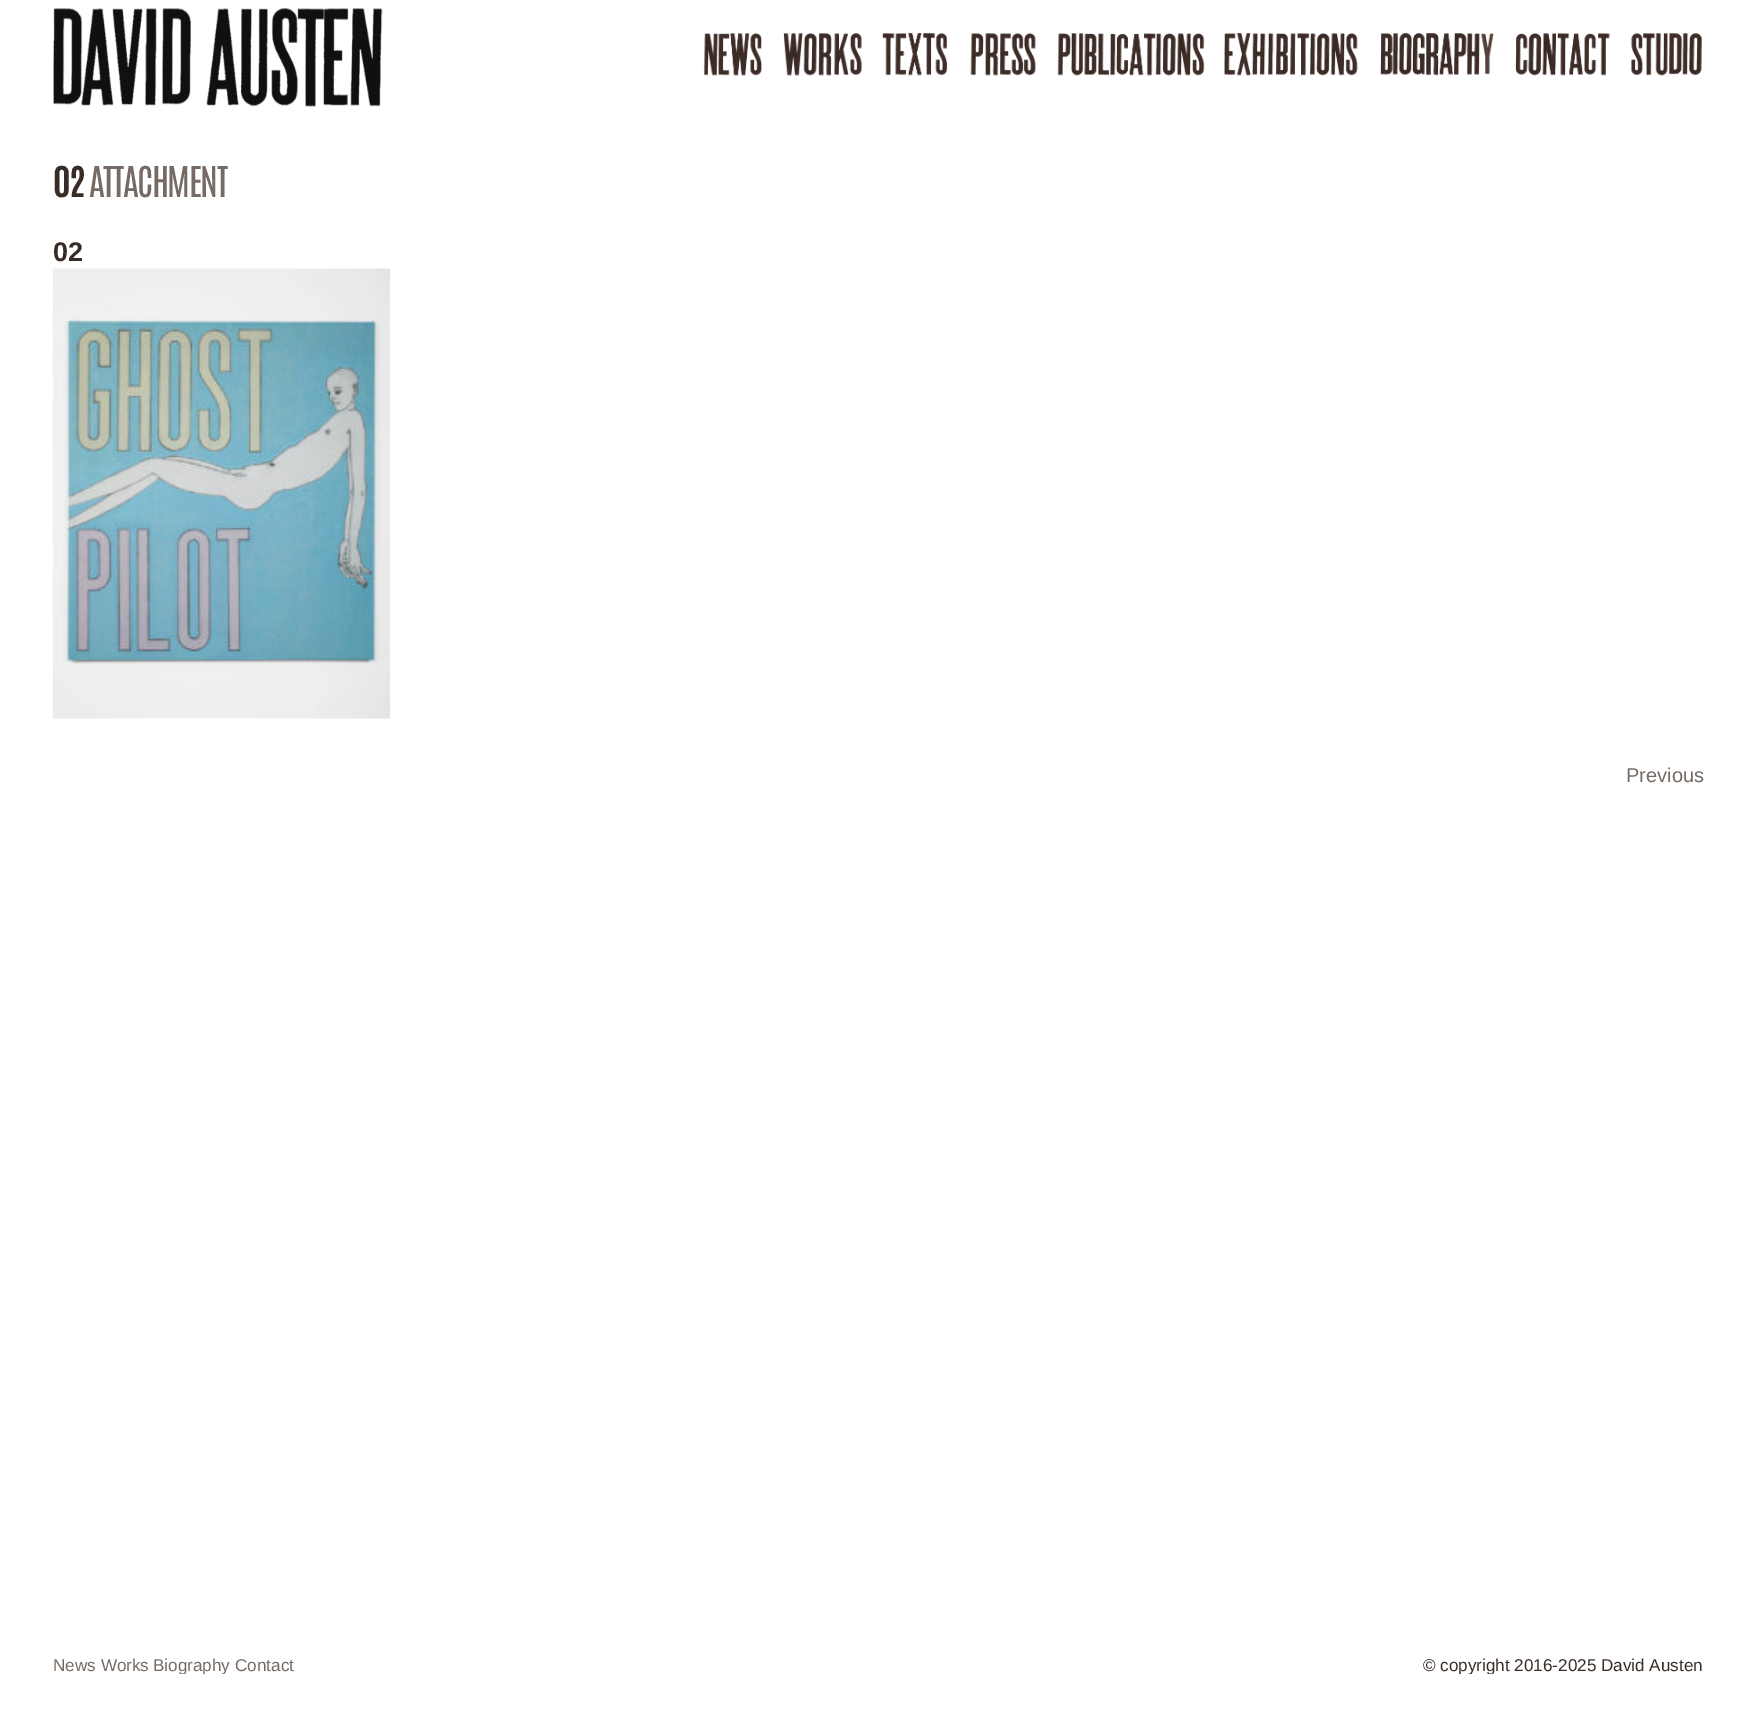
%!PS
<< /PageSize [1754 1715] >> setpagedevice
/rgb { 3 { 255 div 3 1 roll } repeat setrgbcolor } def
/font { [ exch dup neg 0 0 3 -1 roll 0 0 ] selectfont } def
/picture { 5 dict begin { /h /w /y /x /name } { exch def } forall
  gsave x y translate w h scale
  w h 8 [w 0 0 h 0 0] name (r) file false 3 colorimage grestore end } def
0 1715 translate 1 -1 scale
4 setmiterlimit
255 255 255 rgb
0 0 1754 1715 rectfill
(img/1.rgb) 53 8 330 99 picture
(img/2.rgb) 703 33 59 43 picture
(img/3.rgb) 783 33 79 43 picture
(img/4.rgb) 882 32 66 44 picture
(img/5.rgb) 970 33 66 43 picture
(img/6.rgb) 1057 33 148 43 picture
(img/7.rgb) 1224 32 134 44 picture
(img/8.rgb) 1380 32 114 44 picture
(img/9.rgb) 1515 33 95 43 picture
(img/10.rgb) 1631 33 72 43 picture
(img/11.rgb) 52 268 338 451 picture
/Antonio-Bold 36 font
56 44 38 rgb
53 197 moveto -1.5 0 (02) ashow
/Antonio-Regular 36 font
117 106 100 rgb
89 197 moveto -1.5 0 (ATTACHMENT) ashow
/LiberationSans-Bold 27 font
56 44 38 rgb
53 261 moveto (02) show
/LiberationSans-Regular 20 font
117 106 100 rgb
1626 782 moveto (Previous) show
/LiberationSans-Regular 17.1 font
53 1671 moveto (News Works) show
gsave
53 1656 1650 18 rectclip
153 1671 moveto (Biography) show
grestore
235 1671 moveto (Contact) show
gsave
53 1656 1650 18 rectclip
56 44 38 rgb
1423 1671 moveto (© copyright 2016-2025 David Austen) show
grestore
showpage
